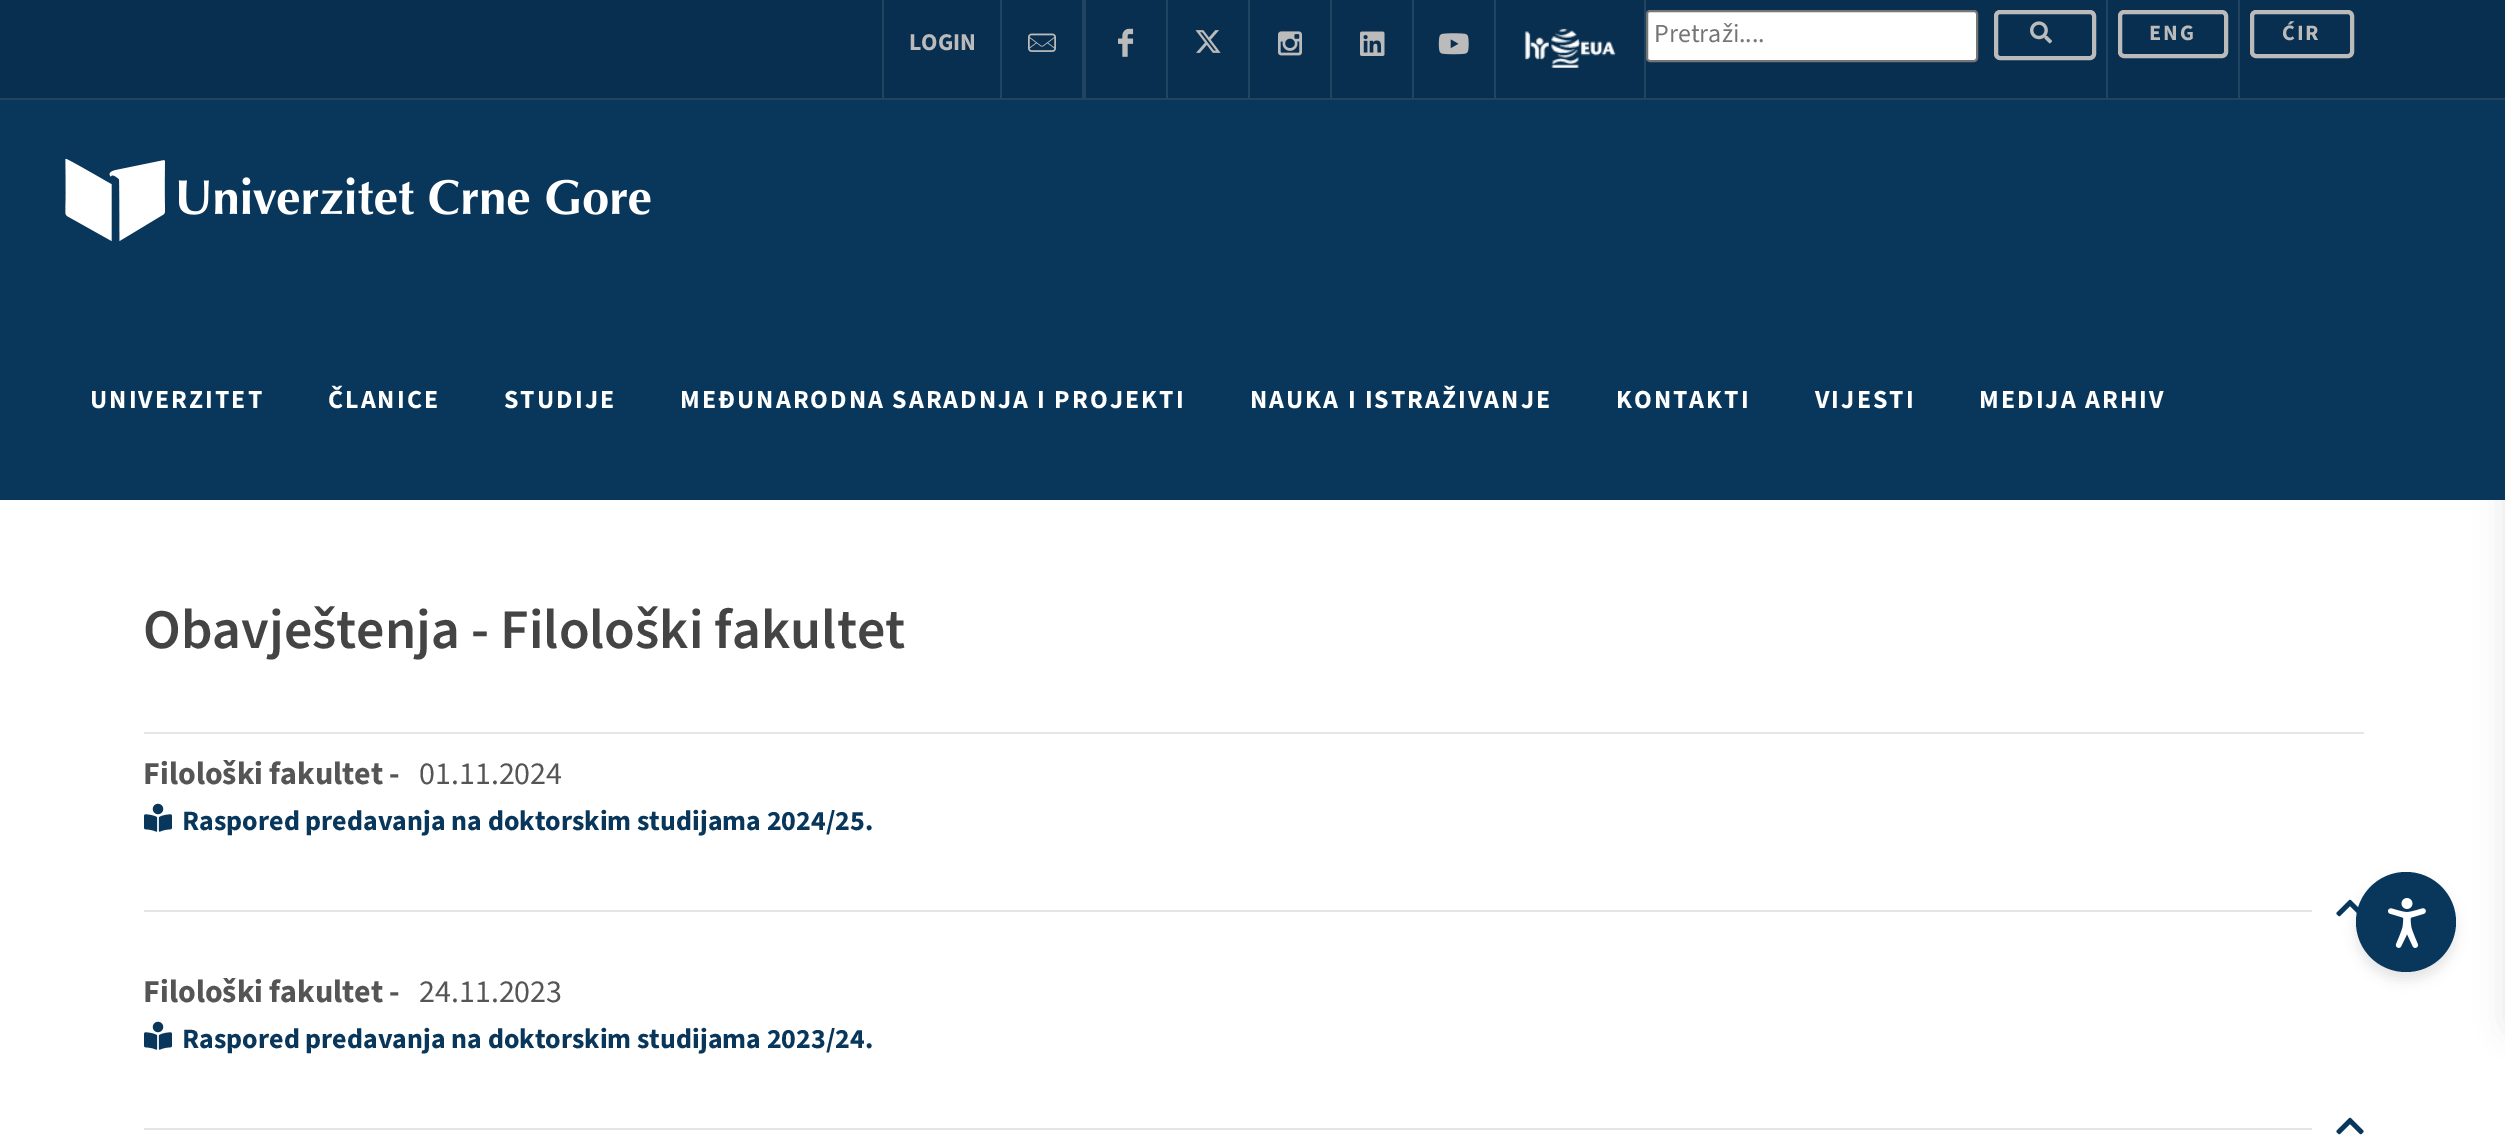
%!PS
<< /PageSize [2505 1142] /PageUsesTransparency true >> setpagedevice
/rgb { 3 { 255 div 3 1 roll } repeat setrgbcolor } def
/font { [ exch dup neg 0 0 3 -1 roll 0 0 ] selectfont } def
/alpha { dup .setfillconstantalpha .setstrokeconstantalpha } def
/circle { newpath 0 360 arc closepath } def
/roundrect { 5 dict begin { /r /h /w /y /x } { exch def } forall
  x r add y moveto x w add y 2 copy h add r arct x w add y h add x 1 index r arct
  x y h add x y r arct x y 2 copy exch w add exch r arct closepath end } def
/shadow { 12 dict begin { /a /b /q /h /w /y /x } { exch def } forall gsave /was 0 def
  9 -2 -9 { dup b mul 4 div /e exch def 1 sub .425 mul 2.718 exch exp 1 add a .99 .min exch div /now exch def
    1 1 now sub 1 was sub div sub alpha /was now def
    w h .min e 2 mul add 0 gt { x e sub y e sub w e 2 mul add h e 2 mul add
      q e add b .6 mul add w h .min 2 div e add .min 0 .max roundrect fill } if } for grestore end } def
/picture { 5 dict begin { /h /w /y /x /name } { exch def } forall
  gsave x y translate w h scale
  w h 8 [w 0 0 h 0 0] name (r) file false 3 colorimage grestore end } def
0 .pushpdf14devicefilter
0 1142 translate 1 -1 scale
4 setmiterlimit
255 255 255 rgb
0 0 2505 1142 rectfill
[
  [0 0 2505 98 8 47 79]
  [0 98 2505 2 33 68 97]
  [882 0 2 98 33 68 97]
  [1000 0 2 98 33 68 97]
] { aload pop rgb rectfill } forall
(img/1.rgb) 1028 33 28 19 picture
1082 0 4 98 rectfill
(img/2.rgb) 1118 28 16 29 picture
1166 0 2 98 rectfill
(img/3.rgb) 1195 30 26 23 picture
1248 0 2 98 rectfill
(img/4.rgb) 1278 31 24 25 picture
1330 0 2 98 rectfill
(img/5.rgb) 1360 31 25 25 picture
1412 0 2 98 rectfill
(img/6.rgb) 1438 33 31 22 picture
1494 0 2 98 rectfill
(img/7.rgb) 1524 28 92 40 picture
1644 0 2 98 rectfill
255 255 255 rgb
1647 11 330 50 3 roundrect gsave fill grestore
118 118 118 rgb
2 setlinewidth
stroke
187 187 187 rgb
4 setlinewidth
1996 12 98 46 4 roundrect stroke
(img/8.rgb) 2030 21 22 23 picture
33 68 97 rgb
2106 0 2 98 rectfill
187 187 187 rgb
2120 12 106 44 4 roundrect stroke
33 68 97 rgb
2238 0 2 98 rectfill
187 187 187 rgb
2252 12 100 44 4 roundrect stroke
9 55 92 rgb
0 100 2505 400 rectfill
(img/9.rgb) 65 158 586 84 picture
(img/12.rgb) 2336 899 23 18 picture
0 0 0 rgb
2356 880 100 100 50 6 0.1 shadow
9 55 92 rgb
2406 922 50 circle fill
(img/10.rgb) 2388 898 38 50 picture
0 0 0 rgb
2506 190 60 846 16 15 0.1 shadow
230 230 230 rgb
144 732 2220 2 rectfill
(img/11.rgb) 144 803 28 29 picture
229 229 229 rgb
144 910 2168 2 rectfill
(img/11.rgb) 144 1021 28 29 picture
144 1128 2168 2 rectfill
(img/13.rgb) 2336 1117 28 18 picture
/SourceSans3-Bold 24 font
187 187 187 rgb
909 50 moveto (LOGIN) show
/SourceSans3-Regular 26 font
117 117 117 rgb
1654 42 moveto (Pretraži....) show
/SourceSans3-Bold 22 font
187 187 187 rgb
2149 40 moveto 2 0 (ENG) ashow
2282 40 moveto 2 0 (ĆIR) ashow
/SourceSans3-Bold 26 font
255 255 255 rgb
90 408 moveto 2 0 (UNIVERZITET) ashow
328 408 moveto 2 0 (ČLANICE) ashow
504 408 moveto 2 0 (STUDIJE) ashow
680 408 moveto 2 0 (MEĐUNARODNA SARADNJA I PROJEKTI) ashow
1250 408 moveto 2 0 (NAUKA I ISTRAŽIVANJE) ashow
1616 408 moveto 2 0 (KONTAKTI) ashow
1815 408 moveto 2 0 (VIJESTI) ashow
1979 408 moveto 2 0 (MEDIJA ARHIV) ashow
/SourceSans3-SemiBold 56 font
68 68 68 rgb
143 648 moveto (Obavještenja - Filološki fakultet) show
/SourceSans3-Bold 32 font
85 85 85 rgb
143 784 moveto (Filološki fakultet -) show
/SourceSans3-Regular 32 font
419 784 moveto (01.11.2024) show
/SourceSans3-Bold 28 font
9 55 92 rgb
182 830 moveto (Raspored predavanja na doktorskim studijama 2024/25.) show
/SourceSans3-Bold 32 font
85 85 85 rgb
143 1002 moveto (Filološki fakultet -) show
/SourceSans3-Regular 32 font
419 1002 moveto (24.11.2023) show
/SourceSans3-Bold 28 font
9 55 92 rgb
182 1048 moveto (Raspored predavanja na doktorskim studijama 2023/24.) show
.poppdf14devicefilter showpage
